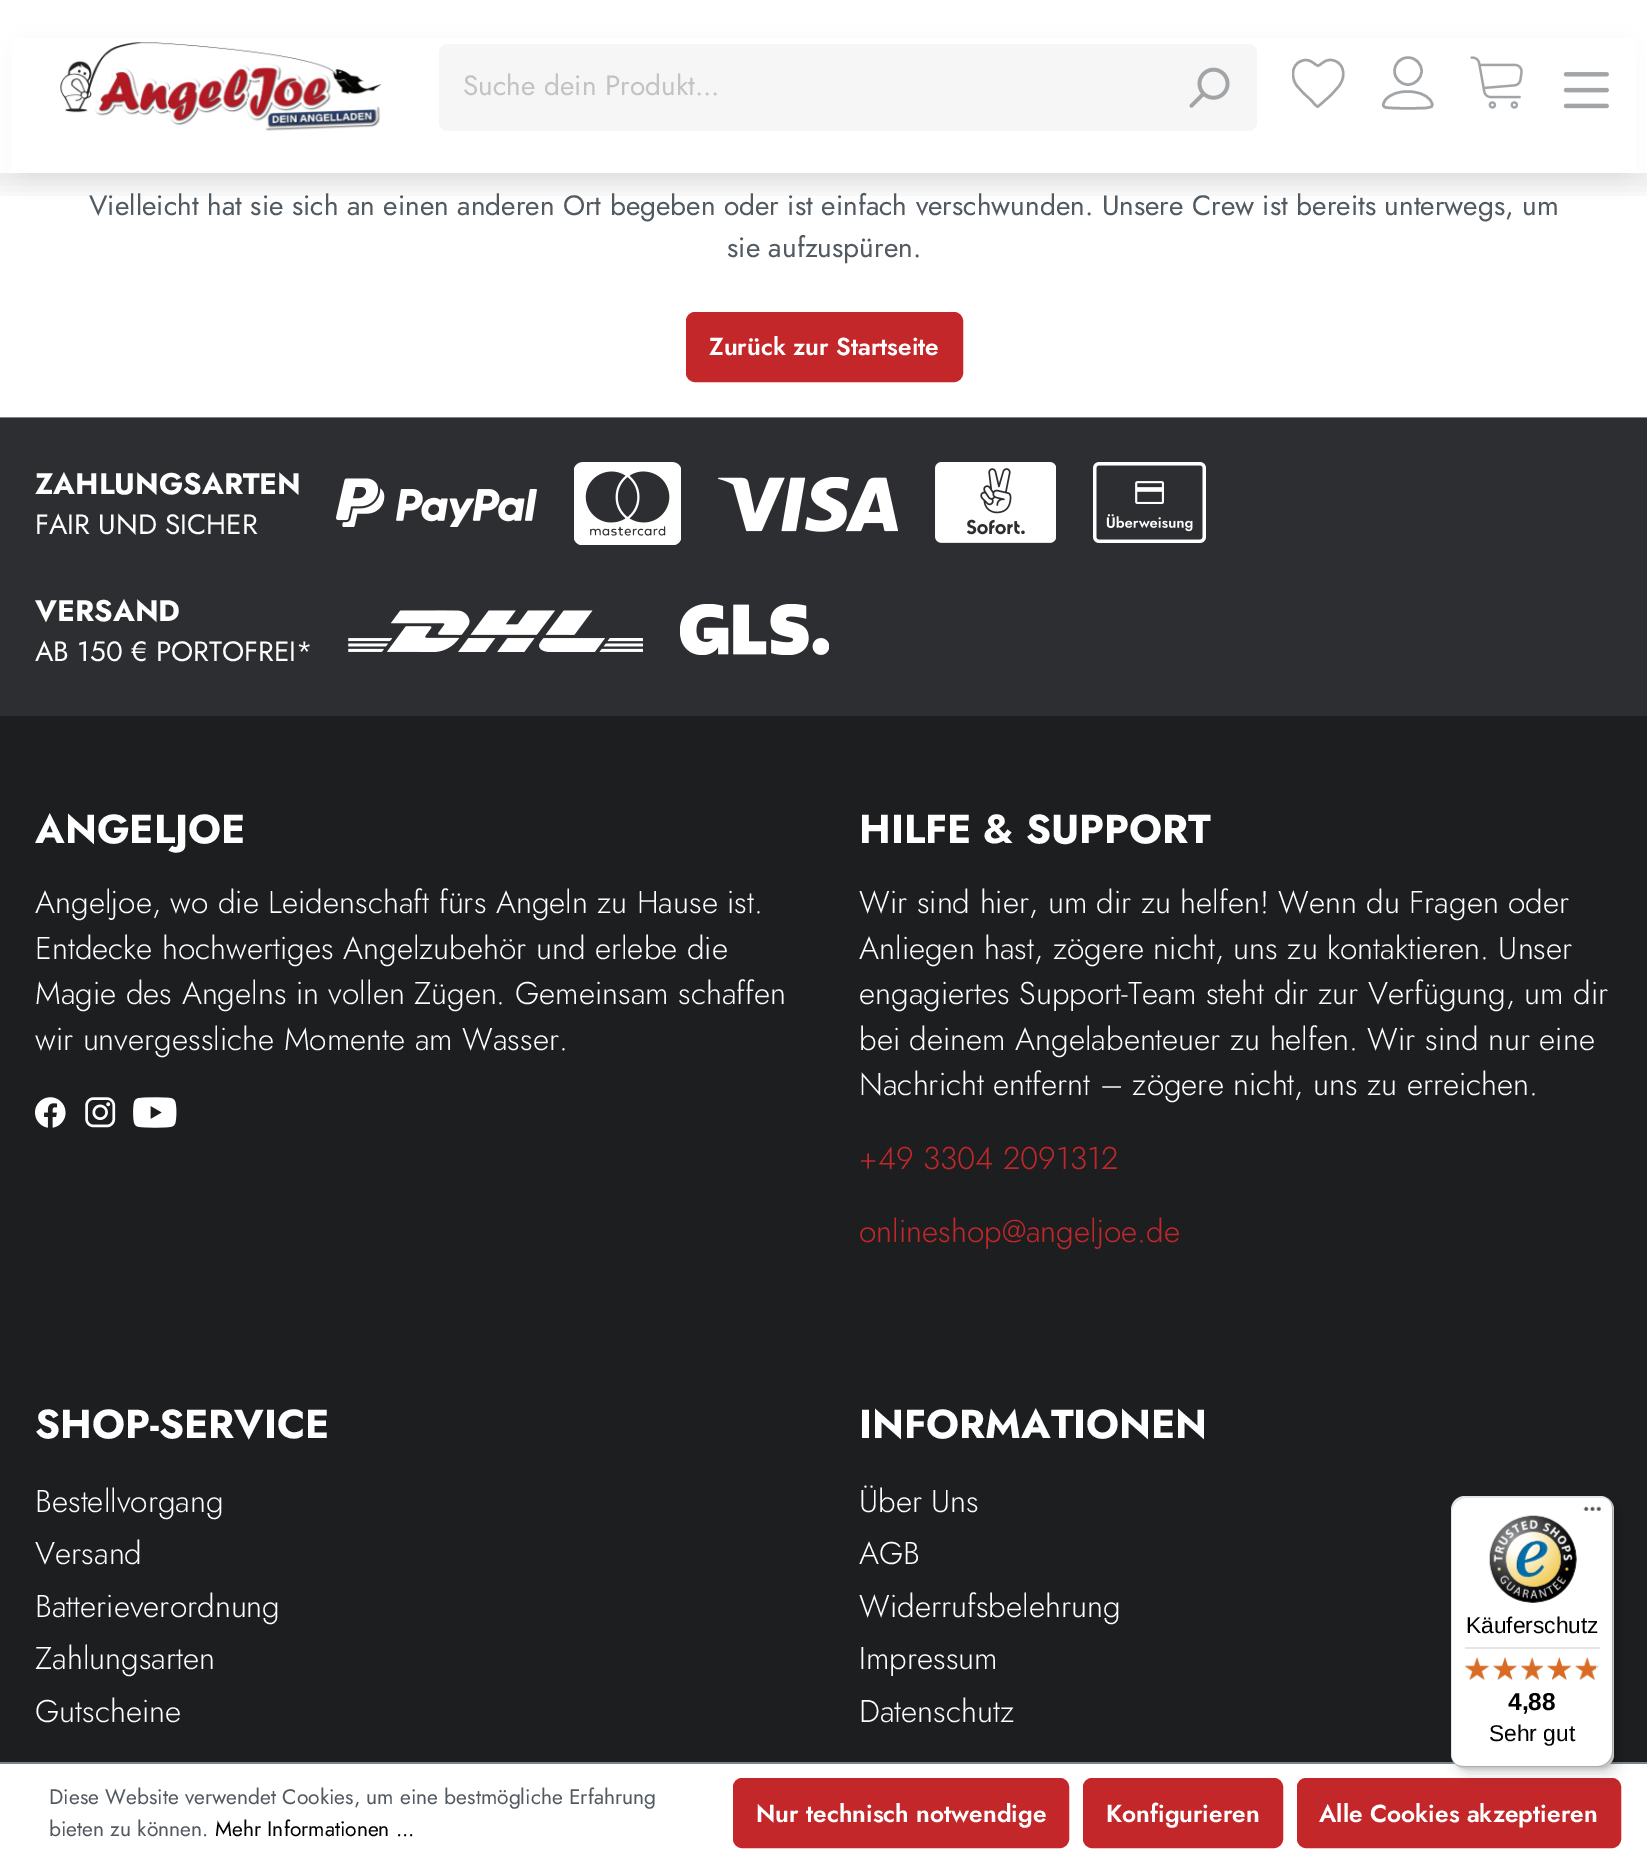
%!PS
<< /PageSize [1647 1862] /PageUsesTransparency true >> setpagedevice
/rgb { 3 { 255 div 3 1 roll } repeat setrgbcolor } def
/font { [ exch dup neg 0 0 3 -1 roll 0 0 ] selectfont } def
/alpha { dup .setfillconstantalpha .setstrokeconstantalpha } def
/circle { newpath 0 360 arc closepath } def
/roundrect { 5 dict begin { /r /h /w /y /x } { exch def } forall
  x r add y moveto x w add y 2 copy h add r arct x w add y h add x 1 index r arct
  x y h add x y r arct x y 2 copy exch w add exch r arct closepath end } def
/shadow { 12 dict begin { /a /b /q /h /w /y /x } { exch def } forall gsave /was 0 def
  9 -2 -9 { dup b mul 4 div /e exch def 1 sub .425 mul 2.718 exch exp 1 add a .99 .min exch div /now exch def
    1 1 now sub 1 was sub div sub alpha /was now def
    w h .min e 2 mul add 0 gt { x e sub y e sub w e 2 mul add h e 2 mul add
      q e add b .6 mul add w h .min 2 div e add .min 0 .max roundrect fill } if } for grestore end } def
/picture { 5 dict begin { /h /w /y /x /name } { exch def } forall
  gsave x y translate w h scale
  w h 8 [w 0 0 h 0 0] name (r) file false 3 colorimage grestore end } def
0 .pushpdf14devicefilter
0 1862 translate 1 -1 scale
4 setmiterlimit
255 255 255 rgb
0 0 1647 1862 rectfill
0 0 0 rgb
26 53 1596 120 0 13 0.08 shadow
255 255 255 rgb
11 38 1626 135 rectfill
gsave
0 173 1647 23 rectclip
0 0 0 rgb
-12 -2 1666 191 0 13 0.07 shadow
grestore
(img/1.rgb) 60 42 322 89 picture
246 246 246 rgb
439 44 818 87 9 roundrect fill
(img/2.rgb) 1189 67 41 41 picture
gsave
1292 56 54 54 rectclip
162 165 168 rgb
2.4 setlinewidth
1 setlinecap
1305.5 60 moveto 1312.5 60 1315 65.5 1318 65.5 curveto 1321 65.5 1323.5 59.5 1331 60 curveto 1343.5 61 1346.5 75 1340 84.5 curveto 1335.5 91.5 1328 98 1321.5 103.5 curveto 1318 106.5 lineto 1316 106.5 1313 102.5 1312 101 curveto 1306.5 96 1300 90.5 1296 84.5 curveto 1290 75 1292.5 61 1305.5 60 curveto closepath stroke
grestore
162 165 168 rgb
2.5 setlinewidth
1408 71 13.5 circle stroke
gsave
1381 56 54 54 9 roundrect clip newpath
1 setlinecap
1407.5 91.5 moveto 1399.5 91.5 1390 93.5 1385 100.5 curveto 1380 108.5 1386.5 107.5 1392.5 108 curveto 1407.5 108.5 lineto 1425.5 108 lineto 1431 107 1435 107.5 1430.5 100.5 curveto 1425.5 93.5 1415.5 91.5 1407.5 91.5 curveto closepath stroke
grestore
(img/3.rgb) 1470 56 53 53 picture
(img/4.rgb) 1563 72 46 37 picture
196 39 42 rgb
687 313 275 68 8 roundrect gsave fill grestore
2 setlinewidth
stroke
[
  [0 716 1647 1046 28 30 32]
  [0 417 1647 1 121 132 144]
  [0 418 1647 298 44 46 49]
] { aload pop rgb rectfill } forall
(img/5.rgb) 336 478 201 49 picture
(img/6.rgb) 574 462 107 83 picture
(img/7.rgb) 718 477 180 55 picture
(img/8.rgb) 935 462 121 81 picture
(img/9.rgb) 1093 462 113 81 picture
(img/10.rgb) 348 610 295 42 picture
(img/11.rgb) 680 604 149 51 picture
(img/12.rgb) 35 1097 31 31 picture
(img/13.rgb) 85 1097 31 31 picture
(img/14.rgb) 133 1097 44 31 picture
121 132 144 rgb
0 1762 1647 2 rectfill
196 39 42 rgb
1298 1779 322 68 8 roundrect gsave fill grestore
stroke
0 0 0 rgb
1456 1502 163 271 14 7 0.15 shadow
1453 1498 162 271 14 2 0.15 shadow
1528 1650 79 70 9 5 0.5 shadow
255 255 255 rgb
1451 1496 163 272 14 roundrect fill
0.1 alpha
0 0 0 rgb
1466 1498 moveto 1601 1498 lineto 1606 1498 1610 1500 1613 1504 curveto 1610 1499 1606 1496 1600 1496 curveto 1465 1496 lineto 1457 1496 1451 1502 1451 1510 curveto 1451 1754 lineto 1451 1759 1453 1763 1457 1765 curveto 1454 1763 1452 1759 1452 1755 curveto 1452 1512 lineto 1452 1504 1459 1498 1466 1498 curveto closepath fill
0.2 alpha
1454 1762 moveto 1456 1766 1460 1768 1465 1768 curveto 1600 1768 lineto 1608 1768 1614 1762 1614 1754 curveto 1614 1510 lineto 1614 1505 1611 1500 1607 1498 curveto 1610 1501 1612 1504 1612 1508 curveto 1612 1752 lineto 1612 1759 1605 1766 1598 1766 curveto 1463 1766 lineto 1459 1766 1456 1765 1454 1762 curveto closepath fill
50 50 50 rgb
1452 1760 moveto 1455 1765 1459 1768 1465 1768 curveto 1600 1768 lineto 1608 1768 1614 1762 1614 1754 curveto 1614 1510 lineto 1614 1504 1611 1500 1606 1497 curveto 1610 1500 1612 1504 1612 1509 curveto 1612 1752 lineto 1612 1760 1606 1766 1598 1766 curveto 1464 1766 lineto 1459 1766 1455 1764 1452 1760 curveto closepath fill
0.3 alpha
255 255 255 rgb
1454 1762 moveto 1456 1766 1460 1768 1465 1768 curveto 1600 1768 lineto 1608 1768 1614 1762 1614 1754 curveto 1614 1510 lineto 1614 1505 1611 1500 1607 1498 curveto 1610 1500 1613 1505 1613 1509 curveto 1613 1753 lineto 1613 1760 1606 1767 1599 1767 curveto 1464 1767 lineto 1460 1767 1456 1765 1454 1762 curveto closepath fill
1 alpha
(img/15.rgb) 1583 1506 18 5 picture
(img/16.rgb) 1489 1515 88 88 picture
229 229 229 rgb
1465 1647 135 2 rectfill
(img/17.rgb) 1464 1657 25 23 picture
(img/18.rgb) 1493 1657 24 23 picture
(img/19.rgb) 1521 1657 23 23 picture
(img/20.rgb) 1547 1657 24 23 picture
(img/21.rgb) 1575 1657 24 23 picture
(img/22.rgb) 1464 1657 25 23 picture
(img/23.rgb) 1493 1657 24 23 picture
(img/24.rgb) 1520 1657 24 23 picture
(img/25.rgb) 1547 1657 24 23 picture
(img/26.rgb) 1575 1657 21 23 picture
196 39 42 rgb
734 1779 334 68 8 roundrect gsave fill grestore
stroke
1084 1779 198 68 8 roundrect gsave fill grestore
stroke
/Jost-Regular 28 font
195 195 195 rgb
463 95 moveto (Suche dein Produkt...) show
81 89 97 rgb
89 215 moveto (Vielleicht hat sie sich an einen anderen Ort begeben oder ist einfach verschwunden. Unsere Crew ist bereits unterwegs, um) show
727 257 moveto (sie aufzuspüren.) show
/Jost-SemiBold 24.5 font
255 255 255 rgb
709 355 moveto (Zurück zur Startseite) show
/Jost-Bold 29.75 font
35 494 moveto (ZAHLUNGSARTEN) show
/Jost-Regular 28 font
35 534 moveto (FAIR UND SICHER) show
/Jost-Bold 29.75 font
35 621 moveto (VERSAND) show
/Jost-Regular 28 font
35 661 moveto (AB 150 € PORTOFREI*) show
/Jost-Bold 40.25 font
35 843 moveto (ANGELJOE) show
/Jost-Light 31.5 font
[
  [(Angeljoe, wo die Leidenschaft fürs Angeln zu Hause ist.) 35 913]
  [(Entdecke hochwertiges Angelzubehör und erlebe die) 35 959]
  [(Magie des Angelns in vollen Zügen. Gemeinsam schaffen) 35 1004]
  [(wir unvergessliche Momente am Wasser.) 35 1050]
] { aload pop moveto show } forall
/Jost-Bold 40.25 font
859 843 moveto (HILFE & SUPPORT) show
/Jost-Light 31.5 font
[
  [(Wir sind hier, um dir zu helfen! Wenn du Fragen oder) 859 913]
  [(Anliegen hast, zögere nicht, uns zu kontaktieren. Unser) 859 959]
  [(engagiertes Support-Team steht dir zur Verfügung, um dir) 859 1004]
  [(bei deinem Angelabenteuer zu helfen. Wir sind nur eine) 859 1050]
  [(Nachricht entfernt – zögere nicht, uns zu erreichen.) 859 1095]
] { aload pop moveto show } forall
196 39 42 rgb
859 1169 moveto (+49 3304 2091312) show
859 1242 moveto (onlineshop@angeljoe.de) show
/Jost-Bold 40.25 font
255 255 255 rgb
35 1438 moveto (SHOP-SERVICE) show
/Jost-Light 31.5 font
[
  [(Bestellvorgang) 35 1512]
  [(Versand) 35 1564]
  [(Batterieverordnung) 35 1617]
  [(Zahlungsarten) 35 1669]
  [(Gutscheine) 35 1722]
] { aload pop moveto show } forall
/Jost-Bold 40.25 font
859 1438 moveto (INFORMATIONEN) show
/Jost-Light 31.5 font
[
  [(Über Uns) 859 1512]
  [(AGB) 859 1564]
  [(Widerrufsbelehrung) 859 1617]
  [(Impressum) 859 1669]
  [(Datenschutz) 859 1722]
] { aload pop moveto show } forall
/LiberationSans-Regular 22.75 font
0 0 0 rgb
1466 1633 moveto (Käuferschutz) show
/LiberationSans-Bold 24.5 font
1508 1710 moveto (4,88) show
/LiberationSans-Regular 22.75 font
1489 1741 moveto (Sehr gut) show
/Jost-Regular 21 font
81 89 97 rgb
49 1804 moveto (Diese Website verwendet Cookies, um eine bestmögliche Erfahrung) show
49 1836 moveto (bieten zu können.) show
0 0 0 rgb
215 1836 moveto (Mehr Informationen ...) show
/Jost-SemiBold 24.5 font
255 255 255 rgb
[
  [(Nur technisch notwendige) 756 1822]
  [(Konfigurieren) 1106 1822]
  [(Alle Cookies akzeptieren) 1319 1822]
] { aload pop moveto show } forall
.poppdf14devicefilter showpage
